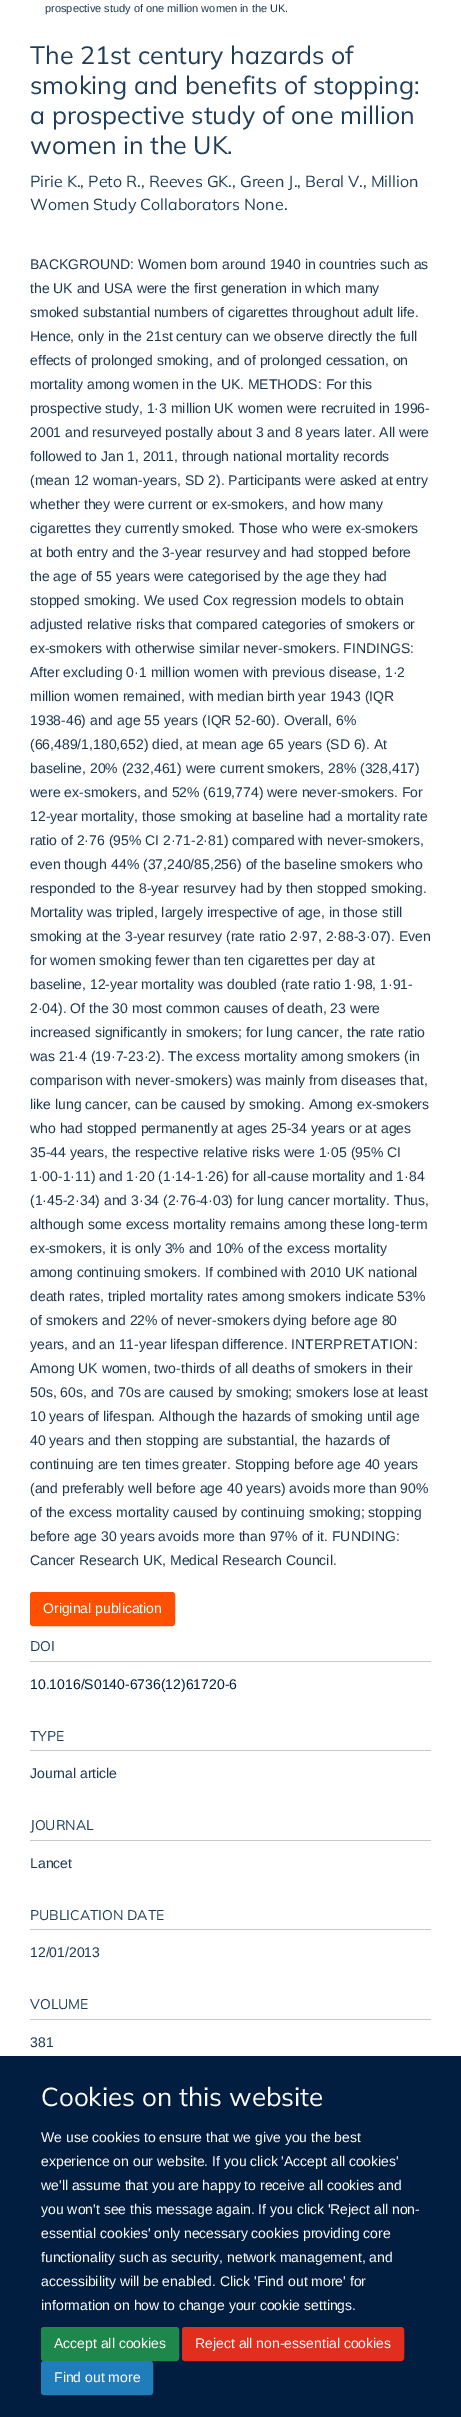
%!PS
<< /PageSize [461 2417] >> setpagedevice
/rgb { 3 { 255 div 3 1 roll } repeat setrgbcolor } def
/font { [ exch dup neg 0 0 3 -1 roll 0 0 ] selectfont } def
/roundrect { 5 dict begin { /r /h /w /y /x } { exch def } forall
  x r add y moveto x w add y 2 copy h add r arct x w add y h add x 1 index r arct
  x y h add x y r arct x y 2 copy exch w add exch r arct closepath end } def
0 2417 translate 1 -1 scale
4 setmiterlimit
255 255 255 rgb
0 0 461 2417 rectfill
254 80 0 rgb
30.5 1592.5 144 33 2.5 roundrect gsave fill grestore
stroke
[
  [30 1661 401 1 198 202 207]
  [30 1750 401 1 198 202 207]
  [30 1840 401 1 198 202 207]
  [30 1929 401 1 198 202 207]
  [30 2019 401 1 198 202 207]
  [0 2056 461 361 1 30 65]
] { aload pop rgb rectfill } forall
30 135 75 rgb
41.5 2327.5 137 33 2.5 roundrect gsave fill grestore
stroke
226 46 28 rgb
182.5 2327.5 221 33 2.5 roundrect gsave fill grestore
stroke
33 124 186 rgb
41.5 2361.5 111 33 2.5 roundrect gsave fill grestore
stroke
/LiberationSans-Regular 11 font
29 56 80 rgb
45 12 moveto (prospective study of one million women in the UK.) show
/Mulish-Regular 25 font
32 62 88 rgb
[
  [(The 21st century hazards of) 30 64]
  [(smoking and benefits of stopping:) 30 94]
  [(a prospective study of one million) 30 124]
  [(women in the UK.) 30 154]
] { aload pop moveto show } forall
/Mulish-Regular 16 font
30 187 moveto (Pirie K., Peto R., Reeves GK., Green J., Beral V., Million) show
30 210 moveto (Women Study Collaborators None.) show
/LiberationSans-Regular 14 font
29 56 80 rgb
[
  [(BACKGROUND: Women born around 1940 in countries such as) 30 269]
  [(the UK and USA were the first generation in which many) 30 293]
  [(smoked substantial numbers of cigarettes throughout adult life.) 30 317]
  [(Hence, only in the 21st century can we observe directly the full) 30 341]
  [(effects of prolonged smoking, and of prolonged cessation, on) 30 365]
  [(mortality among women in the UK. METHODS: For this) 30 389]
  [(prospective study, 1·3 million UK women were recruited in 1996-) 30 413]
  [(2001 and resurveyed postally about 3 and 8 years later. All were) 30 437]
  [(followed to Jan 1, 2011, through national mortality records) 30 461]
  [(\(mean 12 woman-years, SD 2\). Participants were asked at entry) 30 485]
  [(whether they were current or ex-smokers, and how many) 30 509]
  [(cigarettes they currently smoked. Those who were ex-smokers) 30 533]
  [(at both entry and the 3-year resurvey and had stopped before) 30 557]
  [(the age of 55 years were categorised by the age they had) 30 581]
  [(stopped smoking. We used Cox regression models to obtain) 30 605]
  [(adjusted relative risks that compared categories of smokers or) 30 629]
  [(ex-smokers with otherwise similar never-smokers. FINDINGS:) 30 653]
  [(After excluding 0·1 million women with previous disease, 1·2) 30 677]
  [(million women remained, with median birth year 1943 \(IQR) 30 701]
  [(1938-46\) and age 55 years \(IQR 52-60\). Overall, 6%) 30 725]
  [(\(66,489/1,180,652\) died, at mean age 65 years \(SD 6\). At) 30 749]
  [(baseline, 20% \(232,461\) were current smokers, 28% \(328,417\)) 30 773]
  [(were ex-smokers, and 52% \(619,774\) were never-smokers. For) 30 797]
  [(12-year mortality, those smoking at baseline had a mortality rate) 30 821]
  [(ratio of 2·76 \(95% CI 2·71-2·81\) compared with never-smokers,) 30 845]
  [(even though 44% \(37,240/85,256\) of the baseline smokers who) 30 869]
  [(responded to the 8-year resurvey had by then stopped smoking.) 30 893]
  [(Mortality was tripled, largely irrespective of age, in those still) 30 917]
  [(smoking at the 3-year resurvey \(rate ratio 2·97, 2·88-3·07\). Even) 30 941]
  [(for women smoking fewer than ten cigarettes per day at) 30 965]
  [(baseline, 12-year mortality was doubled \(rate ratio 1·98, 1·91-) 30 989]
  [(2·04\). Of the 30 most common causes of death, 23 were) 30 1013]
  [(increased significantly in smokers; for lung cancer, the rate ratio) 30 1037]
  [(was 21·4 \(19·7-23·2\). The excess mortality among smokers \(in) 30 1061]
  [(comparison with never-smokers\) was mainly from diseases that,) 30 1085]
  [(like lung cancer, can be caused by smoking. Among ex-smokers) 30 1109]
  [(who had stopped permanently at ages 25-34 years or at ages) 30 1133]
  [(35-44 years, the respective relative risks were 1·05 \(95% CI) 30 1157]
  [(1·00-1·11\) and 1·20 \(1·14-1·26\) for all-cause mortality and 1·84) 30 1181]
  [(\(1·45-2·34\) and 3·34 \(2·76-4·03\) for lung cancer mortality. Thus,) 30 1205]
  [(although some excess mortality remains among these long-term) 30 1229]
  [(ex-smokers, it is only 3% and 10% of the excess mortality) 30 1253]
  [(among continuing smokers. If combined with 2010 UK national) 30 1277]
  [(death rates, tripled mortality rates among smokers indicate 53%) 30 1301]
  [(of smokers and 22% of never-smokers dying before age 80) 30 1325]
  [(years, and an 11-year lifespan difference. INTERPRETATION:) 30 1349]
  [(Among UK women, two-thirds of all deaths of smokers in their) 30 1373]
  [(50s, 60s, and 70s are caused by smoking; smokers lose at least) 30 1397]
  [(10 years of lifespan. Although the hazards of smoking until age) 30 1421]
  [(40 years and then stopping are substantial, the hazards of) 30 1445]
  [(continuing are ten times greater. Stopping before age 40 years) 30 1469]
  [(\(and preferably well before age 40 years\) avoids more than 90%) 30 1493]
  [(of the excess mortality caused by continuing smoking; stopping) 30 1517]
  [(before age 30 years avoids more than 97% of it. FUNDING:) 30 1541]
  [(Cancer Research UK, Medical Research Council.) 30 1565]
] { aload pop moveto show } forall
255 255 255 rgb
43 1613 moveto (Original publication) show
/Mulish-Regular 14 font
32 62 88 rgb
30 1651 moveto (DOI) show
/LiberationSans-Regular 14 font
1 30 65 rgb
30 1689 moveto (10.1016/S0140-6736\(12\)61720-6) show
/Mulish-Regular 14 font
32 62 88 rgb
30 1741 moveto (TYPE) show
/LiberationSans-Regular 14 font
29 56 80 rgb
30 1778 moveto (Journal article) show
/Mulish-Regular 14 font
32 62 88 rgb
30 1830 moveto (JOURNAL) show
/LiberationSans-Regular 14 font
29 56 80 rgb
30 1868 moveto (Lancet) show
/Mulish-Regular 14 font
32 62 88 rgb
30 1920 moveto (PUBLICATION DATE) show
/LiberationSans-Regular 14 font
29 56 80 rgb
30 1957 moveto (12/01/2013) show
/Mulish-Regular 14 font
32 62 88 rgb
30 2009 moveto (VOLUME) show
/LiberationSans-Regular 14 font
29 56 80 rgb
30 2047 moveto (381) show
/Mulish-Regular 26 font
255 255 255 rgb
41 2106 moveto (Cookies on this website) show
/LiberationSans-Regular 14 font
[
  [(We use cookies to ensure that we give you the best) 41 2142]
  [(experience on our website. If you click 'Accept all cookies') 41 2166]
  [(we'll assume that you are happy to receive all cookies and) 41 2190]
  [(you won't see this message again. If you click 'Reject all non-) 41 2214]
  [(essential cookies' only necessary cookies providing core) 41 2238]
  [(functionality such as security, network management, and) 41 2262]
  [(accessibility will be enabled. Click 'Find out more' for) 41 2286]
  [(information on how to change your cookie settings.) 41 2310]
  [(Accept all cookies) 54 2348]
  [(Reject all non-essential cookies) 195 2348]
  [(Find out more) 54 2382]
] { aload pop moveto show } forall
showpage
